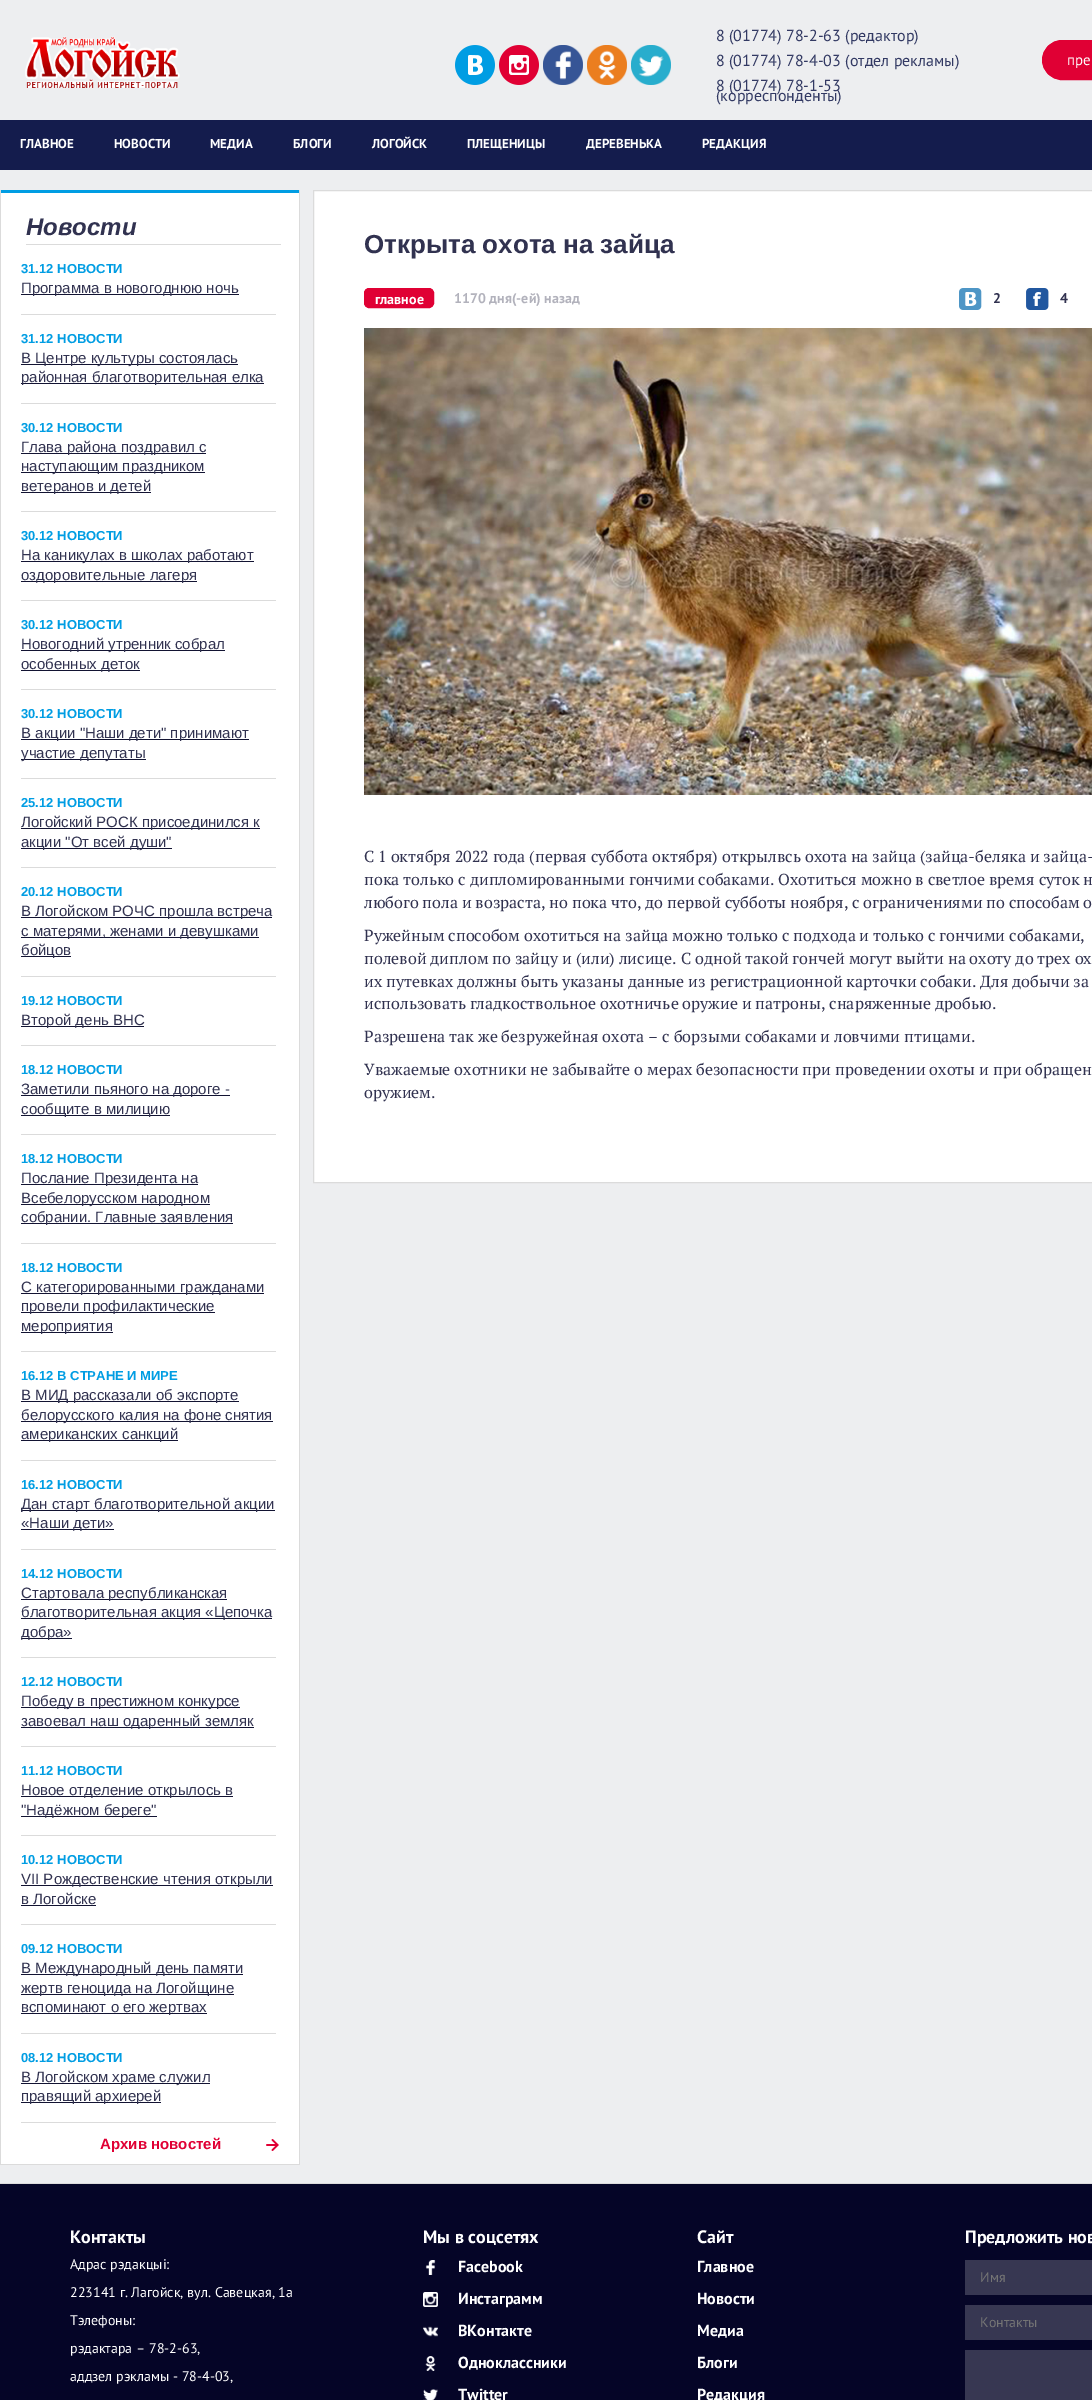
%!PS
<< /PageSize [1092 2400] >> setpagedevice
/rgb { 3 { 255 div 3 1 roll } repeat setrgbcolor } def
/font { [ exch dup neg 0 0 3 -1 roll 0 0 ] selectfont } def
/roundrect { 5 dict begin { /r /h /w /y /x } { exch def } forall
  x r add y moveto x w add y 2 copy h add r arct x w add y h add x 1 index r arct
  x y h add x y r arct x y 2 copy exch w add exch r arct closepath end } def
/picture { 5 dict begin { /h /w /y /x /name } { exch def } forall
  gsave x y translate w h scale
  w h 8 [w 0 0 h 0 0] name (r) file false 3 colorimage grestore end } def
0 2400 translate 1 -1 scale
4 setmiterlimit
237 238 240 rgb
0 0 1092 2400 rectfill
(img/1.rgb) 25 36 155 52 picture
(img/2.rgb) 455 45 40 40 picture
(img/3.rgb) 499 45 40 40 picture
(img/4.rgb) 543 45 40 40 picture
(img/5.rgb) 587 45 40 40 picture
(img/6.rgb) 631 45 40 40 picture
224 0 52 rgb
1042.5 40.5 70 39 19.5 roundrect gsave fill grestore
stroke
[
  [0 120 1092 50 20 28 77]
  [1 193 298 1971 255 255 255]
  [299 190 1 1975 219 219 219]
  [0 2164 300 1 219 219 219]
  [0 190 1 1975 219 219 219]
  [1 190 298 3 0 157 227]
  [26 244 255 1 219 219 219]
  [21 314 255 1 219 219 219]
  [21 294 218 1 18 19 50]
  [21 403 255 1 219 219 219]
  [21 364 217 1 18 19 50]
  [21 383 243 1 18 19 50]
  [21 511 255 1 219 219 219]
  [21 453 185 1 18 19 50]
  [21 472 184 1 18 19 50]
  [21 492 130 1 18 19 50]
  [21 600 255 1 219 219 219]
  [21 561 233 1 18 19 50]
  [21 581 176 1 18 19 50]
  [21 689 255 1 219 219 219]
  [21 650 204 1 18 19 50]
  [21 670 119 1 18 19 50]
  [21 778 255 1 219 219 219]
  [21 739 228 1 18 19 50]
  [21 759 125 1 18 19 50]
  [21 867 255 1 219 219 219]
  [21 828 239 1 18 19 50]
  [21 848 151 1 18 19 50]
  [21 976 255 1 219 219 219]
  [21 917 251 1 18 19 50]
  [21 937 238 1 18 19 50]
  [21 956 50 1 18 19 50]
  [21 1045 255 1 219 219 219]
  [21 1026 123 1 18 19 50]
  [21 1134 255 1 219 219 219]
  [21 1095 209 1 18 19 50]
  [21 1115 149 1 18 19 50]
  [21 1243 255 1 219 219 219]
  [21 1184 177 1 18 19 50]
  [21 1204 189 1 18 19 50]
  [21 1223 212 1 18 19 50]
  [21 1351 255 1 219 219 219]
  [21 1293 243 1 18 19 50]
  [21 1312 194 1 18 19 50]
  [21 1332 92 1 18 19 50]
  [21 1460 255 1 219 219 219]
  [21 1401 218 1 18 19 50]
  [21 1421 252 1 18 19 50]
  [21 1440 157 1 18 19 50]
  [21 1549 255 1 219 219 219]
  [21 1510 254 1 18 19 50]
  [21 1529 93 1 18 19 50]
  [21 1657 255 1 219 219 219]
  [21 1599 206 1 18 19 50]
  [21 1618 251 1 18 19 50]
  [21 1638 51 1 18 19 50]
  [21 1746 255 1 219 219 219]
  [21 1707 219 1 18 19 50]
  [21 1727 233 1 18 19 50]
  [21 1835 255 1 219 219 219]
  [21 1796 212 1 18 19 50]
  [21 1816 136 1 18 19 50]
  [21 1924 255 1 219 219 219]
  [21 1885 252 1 18 19 50]
  [21 1905 75 1 18 19 50]
  [21 2033 255 1 219 219 219]
  [21 1974 222 1 18 19 50]
  [21 1994 213 1 18 19 50]
  [21 2013 186 1 18 19 50]
  [21 2122 255 1 219 219 219]
  [21 2083 189 1 18 19 50]
  [21 2102 140 1 18 19 50]
] { aload pop rgb rectfill } forall
(img/7.rgb) 266 2139 13 12 picture
255 255 255 rgb
313.5 190.5 moveto 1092.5 190.5 lineto 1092.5 1182.5 lineto 313.5 1182.5 lineto closepath gsave fill grestore
219 219 219 rgb
stroke
224 0 52 rgb
364.5 288.5 69 19 4.5 roundrect gsave fill grestore
stroke
(img/8.rgb) 959 288 23 22 picture
(img/9.rgb) 1026 288 23 22 picture
(img/10.rgb) 364 328 728 467 picture
221 221 221 rgb
0 2183 1092 1 rectfill
5 5 39 rgb
0 2184 1092 216 rectfill
(img/11.rgb) 425 2260 11 15 picture
(img/12.rgb) 423 2292 15 15 picture
(img/13.rgb) 423 2326 15 11 picture
(img/14.rgb) 425 2356 11 15 picture
(img/15.rgb) 423 2389 15 11 picture
[
  [965 2260 127 35 55 55 82]
  [965 2305 127 35 55 55 82]
  [965 2350 127 50 55 55 82]
] { aload pop rgb rectfill } forall
/PTSans-Regular 16 font
50 57 99 rgb
[
  [(8 \(01774\) 78-2-63 \(редактор\)) 716 41]
  [(8 \(01774\) 78-4-03 \(отдел рекламы\)) 716 66]
  [(8 \(01774\) 78-1-53) 716 91]
  [(\(корреспонденты\)) 716 101]
] { aload pop moveto show } forall
/PTSans-Regular 15 font
255 255 255 rgb
1067 65 moveto (пре) show
/PTSans-Bold 13 font
[
  [(ГЛАВНОЕ) 20 148]
  [(НОВОСТИ) 114 148]
  [(МЕДИА) 210 148]
  [(БЛОГИ) 293 148]
  [(ЛОГОЙСК) 372 148]
  [(ПЛЕЩЕНИЦЫ) 467 148]
  [(ДЕРЕВЕНЬКА) 586 148]
  [(РЕДАКЦИЯ) 702 148]
] { aload pop moveto show } forall
/LiberationSans-BoldItalic 24 font
49 50 80 rgb
26 235 moveto (Новости) show
/LiberationSans-Bold 13 font
0 157 227 rgb
21 273 moveto (31.12 НОВОСТИ) show
/LiberationSans-Regular 15 font
49 50 80 rgb
21 293 moveto (Программа в новогоднюю ночь) show
/LiberationSans-Bold 13 font
0 157 227 rgb
21 343 moveto (31.12 НОВОСТИ) show
/LiberationSans-Regular 15 font
49 50 80 rgb
21 363 moveto (В Центре культуры состоялась) show
21 382 moveto (районная благотворительная елка) show
/LiberationSans-Bold 13 font
0 157 227 rgb
21 432 moveto (30.12 НОВОСТИ) show
/LiberationSans-Regular 15 font
49 50 80 rgb
[
  [(Глава района поздравил с) 21 452]
  [(наступающим праздником) 21 471]
  [(ветеранов и детей) 21 491]
] { aload pop moveto show } forall
/LiberationSans-Bold 13 font
0 157 227 rgb
21 540 moveto (30.12 НОВОСТИ) show
/LiberationSans-Regular 15 font
49 50 80 rgb
21 560 moveto (На каникулах в школах работают) show
21 580 moveto (оздоровительные лагеря) show
/LiberationSans-Bold 13 font
0 157 227 rgb
21 629 moveto (30.12 НОВОСТИ) show
/LiberationSans-Regular 15 font
49 50 80 rgb
21 649 moveto (Новогодний утренник собрал) show
21 669 moveto (особенных деток) show
/LiberationSans-Bold 13 font
0 157 227 rgb
21 718 moveto (30.12 НОВОСТИ) show
/LiberationSans-Regular 15 font
49 50 80 rgb
21 738 moveto (В акции "Наши дети" принимают) show
21 758 moveto (участие депутаты) show
/LiberationSans-Bold 13 font
0 157 227 rgb
21 807 moveto (25.12 НОВОСТИ) show
/LiberationSans-Regular 15 font
49 50 80 rgb
21 827 moveto (Логойский РОСК присоединился к) show
21 847 moveto (акции "От всей души") show
/LiberationSans-Bold 13 font
0 157 227 rgb
21 896 moveto (20.12 НОВОСТИ) show
/LiberationSans-Regular 15 font
49 50 80 rgb
[
  [(В Логойском РОЧС прошла встреча) 21 916]
  [(с матерями, женами и девушками) 21 936]
  [(бойцов) 21 955]
] { aload pop moveto show } forall
/LiberationSans-Bold 13 font
0 157 227 rgb
21 1005 moveto (19.12 НОВОСТИ) show
/LiberationSans-Regular 15 font
49 50 80 rgb
21 1025 moveto (Второй день ВНС) show
/LiberationSans-Bold 13 font
0 157 227 rgb
21 1074 moveto (18.12 НОВОСТИ) show
/LiberationSans-Regular 15 font
49 50 80 rgb
21 1094 moveto (Заметили пьяного на дороге -) show
21 1114 moveto (сообщите в милицию) show
/LiberationSans-Bold 13 font
0 157 227 rgb
21 1163 moveto (18.12 НОВОСТИ) show
/LiberationSans-Regular 15 font
49 50 80 rgb
[
  [(Послание Президента на) 21 1183]
  [(Всебелорусском народном) 21 1203]
  [(собрании. Главные заявления) 21 1222]
] { aload pop moveto show } forall
/LiberationSans-Bold 13 font
0 157 227 rgb
21 1272 moveto (18.12 НОВОСТИ) show
/LiberationSans-Regular 15 font
49 50 80 rgb
[
  [(С категорированными гражданами) 21 1292]
  [(провели профилактические) 21 1311]
  [(мероприятия) 21 1331]
] { aload pop moveto show } forall
/LiberationSans-Bold 13 font
0 157 227 rgb
21 1380 moveto (16.12 В СТРАНЕ И МИРЕ) show
/LiberationSans-Regular 15 font
49 50 80 rgb
[
  [(В МИД рассказали об экспорте) 21 1400]
  [(белорусского калия на фоне снятия) 21 1420]
  [(американских санкций) 21 1439]
] { aload pop moveto show } forall
/LiberationSans-Bold 13 font
0 157 227 rgb
21 1489 moveto (16.12 НОВОСТИ) show
/LiberationSans-Regular 15 font
49 50 80 rgb
21 1509 moveto (Дан старт благотворительной акции) show
21 1528 moveto («Наши дети») show
/LiberationSans-Bold 13 font
0 157 227 rgb
21 1578 moveto (14.12 НОВОСТИ) show
/LiberationSans-Regular 15 font
49 50 80 rgb
[
  [(Стартовала республиканская) 21 1598]
  [(благотворительная акция «Цепочка) 21 1617]
  [(добра») 21 1637]
] { aload pop moveto show } forall
/LiberationSans-Bold 13 font
0 157 227 rgb
21 1686 moveto (12.12 НОВОСТИ) show
/LiberationSans-Regular 15 font
49 50 80 rgb
21 1706 moveto (Победу в престижном конкурсе) show
21 1726 moveto (завоевал наш одаренный земляк) show
/LiberationSans-Bold 13 font
0 157 227 rgb
21 1775 moveto (11.12 НОВОСТИ) show
/LiberationSans-Regular 15 font
49 50 80 rgb
21 1795 moveto (Новое отделение открылось в) show
21 1815 moveto ("Надёжном береге") show
/LiberationSans-Bold 13 font
0 157 227 rgb
21 1864 moveto (10.12 НОВОСТИ) show
/LiberationSans-Regular 15 font
49 50 80 rgb
21 1884 moveto (VII Рождественские чтения открыли) show
21 1904 moveto (в Логойске) show
/LiberationSans-Bold 13 font
0 157 227 rgb
21 1953 moveto (09.12 НОВОСТИ) show
/LiberationSans-Regular 15 font
49 50 80 rgb
[
  [(В Международный день памяти) 21 1973]
  [(жертв геноцида на Логойщине) 21 1993]
  [(вспоминают о его жертвах) 21 2012]
] { aload pop moveto show } forall
/LiberationSans-Bold 13 font
0 157 227 rgb
21 2062 moveto (08.12 НОВОСТИ) show
/LiberationSans-Regular 15 font
49 50 80 rgb
21 2082 moveto (В Логойском храме служил) show
21 2101 moveto (правящий архиерей) show
/LiberationSans-Bold 15 font
224 0 52 rgb
100 2149 moveto (Архив новостей) show
/LiberationSans-Bold 26 font
49 50 80 rgb
364 253 moveto (Открыта охота на зайца) show
/PTSans-Bold 14 font
255 255 255 rgb
375 304 moveto (главное) show
178 178 188 rgb
454 303 moveto (1170 дня\(-ей\) назад) show
49 50 80 rgb
993 303 moveto (2) show
1060 303 moveto (4) show
/PTSerif-Regular 16 font
[
  [(С 1 октября 2022 года \(первая суббота октября\) открылвсь охота на зайца \(зайца-беляка и зайца-) 364 862]
  [(пока только с дипломированными гончими собаками. Охотиться можно в светлое время суток н) 364 885]
  [(любого пола и возраста, но пока что, до первой субботы ноября, с ограничениями по способам о) 364 908]
  [(Ружейным способом охотиться на зайца можно только с подхода и только с гончими собаками,) 364 941]
  [(полевой диплом по зайцу и \(или\) лисице. С одной такой гончей могут выйти на охоту до трех ох) 364 964]
  [(их путевках должны быть указаны данные из регистрационной карточки собаки. Для добычи за) 364 987]
  [(использовать гладкоствольное охотничье оружие и патроны, снаряженные дробью.) 364 1009]
  [(Разрешена так же безружейная охота – с борзыми собаками и ловчими птицами.) 364 1042]
  [(Уважаемые охотники не забывайте о мерах безопасности при проведении охоты и при обращен) 364 1075]
  [(оружием.) 364 1098]
] { aload pop moveto show } forall
/PTSans-Bold 18 font
255 255 255 rgb
70 2243 moveto (Контакты) show
/PTSans-Regular 14 font
[
  [(Адрас рэдакцыi:) 70 2269]
  [(223141 г. Лагойск, вул. Савецкая, 1а) 70 2297]
  [(Тэлефоны:) 70 2325]
  [(рэдактара – 78-2-63,) 70 2353]
  [(аддзел рэкламы - 78-4-03,) 70 2381]
] { aload pop moveto show } forall
/PTSans-Bold 18 font
423 2243 moveto (Мы в соцсетях) show
/PTSans-Bold 16 font
[
  [(Facebook) 458 2272]
  [(Инстаграмм) 458 2304]
  [(ВКонтакте) 458 2336]
  [(Одноклассники) 458 2368]
  [(Twitter) 458 2400]
] { aload pop moveto show } forall
/PTSans-Bold 18 font
697 2243 moveto (Сайт) show
/PTSans-Bold 16 font
[
  [(Главное) 697 2272]
  [(Новости) 697 2304]
  [(Медиа) 697 2336]
  [(Блоги) 697 2368]
  [(Редакция) 697 2400]
] { aload pop moveto show } forall
/PTSans-Bold 18 font
965 2243 moveto (Предложить нов) show
/PTSans-Regular 14 font
117 117 117 rgb
980 2282 moveto (Имя) show
980 2327 moveto (Контакты) show
showpage
